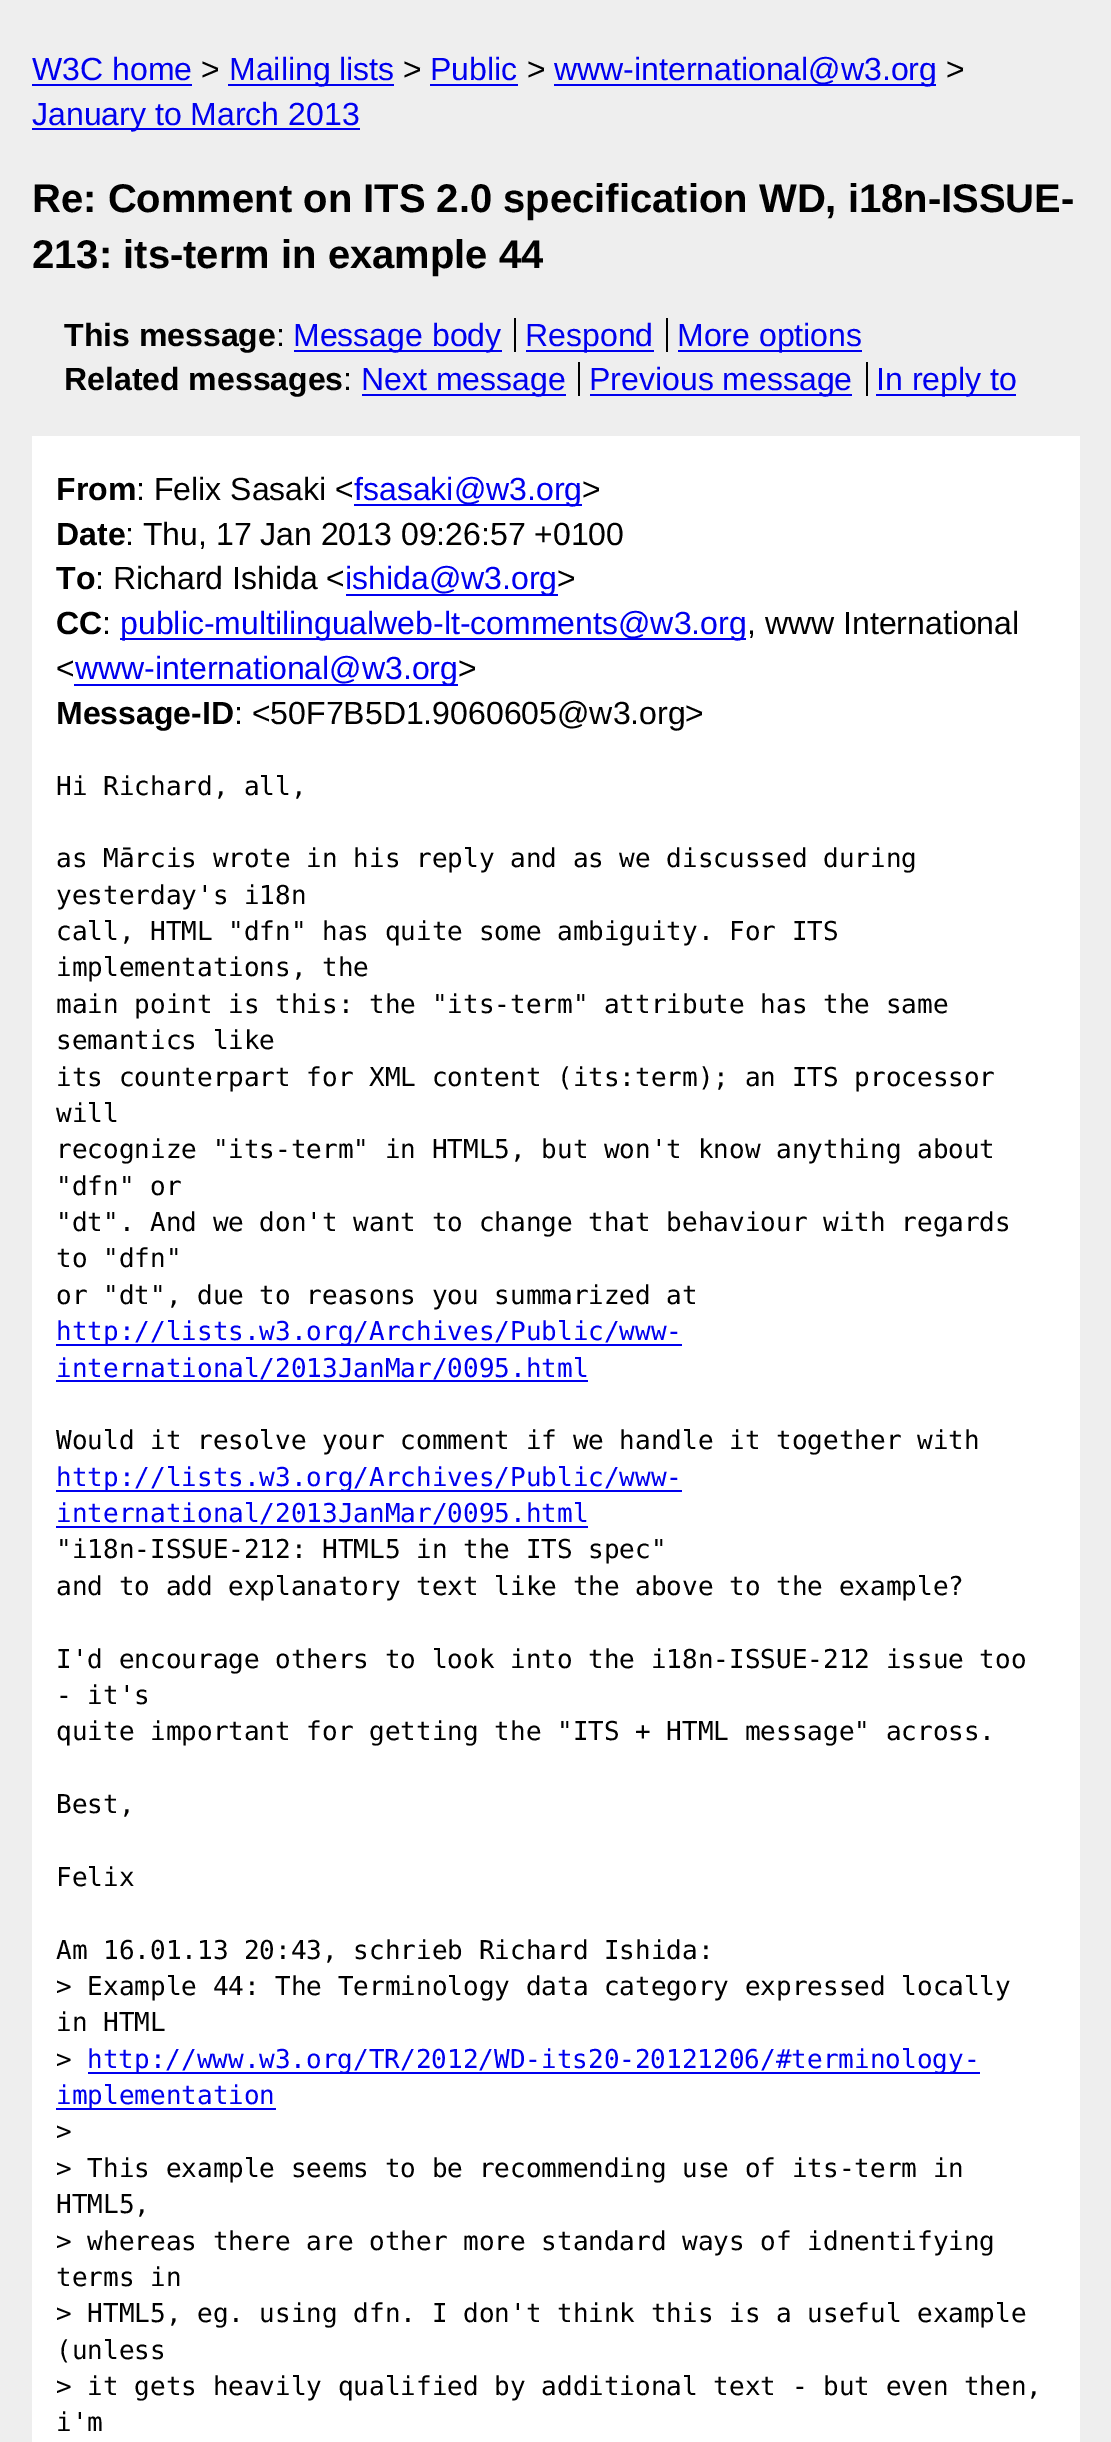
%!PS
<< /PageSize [1111 2442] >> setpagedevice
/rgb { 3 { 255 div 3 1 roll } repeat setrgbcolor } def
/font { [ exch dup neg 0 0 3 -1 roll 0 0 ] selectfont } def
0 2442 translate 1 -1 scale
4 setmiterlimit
238 238 238 rgb
0 0 1111 2442 rectfill
[
  [32 84 160 2 0 0 238]
  [228 84 166 2 0 0 238]
  [430 84 88 2 0 0 238]
  [554 84 382 2 0 0 238]
  [32 128 328 2 0 0 238]
  [294 350 208 2 0 0 238]
  [514 318 2 34 0 0 0]
  [526 350 128 2 0 0 238]
  [666 318 2 34 0 0 0]
  [678 350 184 2 0 0 238]
  [362 394 204 2 0 0 238]
  [578 362 2 34 0 0 0]
  [590 394 262 2 0 0 238]
  [866 362 2 34 0 0 0]
  [876 394 140 2 0 0 238]
  [32 436 1048 2006 255 255 255]
  [354 504 228 2 0 0 238]
  [346 594 212 2 0 0 238]
  [120 638 626 2 0 0 238]
  [74 684 384 2 0 0 238]
  [56 1344 626 2 0 0 238]
  [56 1380 532 2 0 0 238]
  [56 1490 626 2 0 0 238]
  [56 1526 532 2 0 0 238]
  [88 2072 892 2 0 0 238]
  [56 2108 220 2 0 0 238]
] { aload pop rgb rectfill } forall
/LiberationSans-Regular 32 font
32 80 moveto (W3C home) show
0 0 0 rgb
201 80 moveto (>) show
0 0 238 rgb
229 80 moveto (Mailing lists) show
0 0 0 rgb
403 80 moveto (>) show
0 0 238 rgb
430 80 moveto (Public) show
0 0 0 rgb
527 80 moveto (>) show
0 0 238 rgb
554 80 moveto (www-international@w3.org) show
0 0 0 rgb
946 80 moveto (>) show
0 0 238 rgb
32 125 moveto (January to March 2013) show
/LiberationSans-Bold 40 font
0 0 0 rgb
32 212 moveto (Re: Comment on ITS 2.0 specification WD, i18n-ISSUE-) show
32 268 moveto (213: its-term in example 44) show
/LiberationSans-Bold 32 font
64 346 moveto (This message) show
/LiberationSans-Regular 32 font
276 346 moveto (:) show
0 0 238 rgb
[
  [(Message body) 293 346]
  [(Respond) 525 346]
  [(More options) 677 346]
] { aload pop moveto show } forall
/LiberationSans-Bold 32 font
0 0 0 rgb
64 390 moveto (Related messages) show
/LiberationSans-Regular 32 font
343 390 moveto (:) show
0 0 238 rgb
[
  [(Next message) 361 390]
  [(Previous message) 589 390]
  [(In reply to) 876 390]
] { aload pop moveto show } forall
/LiberationSans-Bold 32 font
0 0 0 rgb
56 500 moveto (From) show
/LiberationSans-Regular 32 font
136 500 moveto (: Felix Sasaki <) show
0 0 238 rgb
354 500 moveto (fsasaki@w3.org) show
0 0 0 rgb
582 500 moveto (>) show
/LiberationSans-Bold 32 font
56 545 moveto (Date) show
/LiberationSans-Regular 32 font
125 545 moveto (: Thu, 17 Jan 2013 09:26:57 +0100) show
/LiberationSans-Bold 32 font
56 589 moveto (To) show
/LiberationSans-Regular 32 font
95 589 moveto (: Richard Ishida <) show
0 0 238 rgb
345 589 moveto (ishida@w3.org) show
0 0 0 rgb
557 589 moveto (>) show
/LiberationSans-Bold 32 font
56 634 moveto (CC) show
/LiberationSans-Regular 32 font
102 634 moveto (:) show
0 0 238 rgb
120 634 moveto (public-multilingualweb-lt-comments@w3.org) show
0 0 0 rgb
747 634 moveto (, www International) show
56 679 moveto (<) show
0 0 238 rgb
75 679 moveto (www-international@w3.org) show
0 0 0 rgb
458 679 moveto (>) show
/LiberationSans-Bold 32 font
56 724 moveto (Message-ID) show
/LiberationSans-Regular 32 font
234 724 moveto (: <50F7B5D1.9060605@w3.org>) show
/DejaVuSansMono-Regular 26 font
[
  [(Hi Richard, all,) 56 795]
  [(as Mārcis wrote in his reply and as we discussed during) 56 867]
  [(yesterday's i18n) 56 904]
  [(call, HTML "dfn" has quite some ambiguity. For ITS) 56 940]
  [(implementations, the) 56 976]
  [(main point is this: the "its-term" attribute has the same) 56 1013]
  [(semantics like) 56 1049]
  [(its counterpart for XML content \(its:term\); an ITS processor) 56 1086]
  [(will) 56 1122]
  [(recognize "its-term" in HTML5, but won't know anything about) 56 1158]
  [("dfn" or) 56 1195]
  [("dt". And we don't want to change that behaviour with regards) 56 1231]
  [(to "dfn") 56 1267]
  [(or "dt", due to reasons you summarized at) 56 1304]
] { aload pop moveto show } forall
0 0 238 rgb
56 1340 moveto (http://lists.w3.org/Archives/Public/www-) show
56 1377 moveto (international/2013JanMar/0095.html) show
0 0 0 rgb
56 1449 moveto (Would it resolve your comment if we handle it together with) show
0 0 238 rgb
56 1486 moveto (http://lists.w3.org/Archives/Public/www-) show
56 1522 moveto (international/2013JanMar/0095.html) show
0 0 0 rgb
[
  [("i18n-ISSUE-212: HTML5 in the ITS spec") 56 1558]
  [(and to add explanatory text like the above to the example?) 56 1595]
  [(I'd encourage others to look into the i18n-ISSUE-212 issue too) 56 1668]
  [(- it's) 56 1704]
  [(quite important for getting the "ITS + HTML message" across.) 56 1740]
  [(Best,) 56 1813]
  [(Felix) 56 1886]
  [(Am 16.01.13 20:43, schrieb Richard Ishida:) 56 1959]
  [(> Example 44: The Terminology data category expressed locally) 56 1995]
  [(in HTML) 56 2031]
  [(>) 56 2068]
] { aload pop moveto show } forall
0 0 238 rgb
87 2068 moveto (http://www.w3.org/TR/2012/WD-its20-20121206/#terminology-) show
56 2104 moveto (implementation) show
0 0 0 rgb
[
  [(>) 56 2140]
  [(> This example seems to be recommending use of its-term in) 56 2177]
  [(HTML5,) 56 2213]
  [(> whereas there are other more standard ways of idnentifying) 56 2250]
  [(terms in) 56 2286]
  [(> HTML5, eg. using dfn. I don't think this is a useful example) 56 2322]
  [(\(unless) 56 2359]
  [(> it gets heavily qualified by additional text - but even then,) 56 2395]
  [(i'm) 56 2431]
] { aload pop moveto show } forall
showpage
